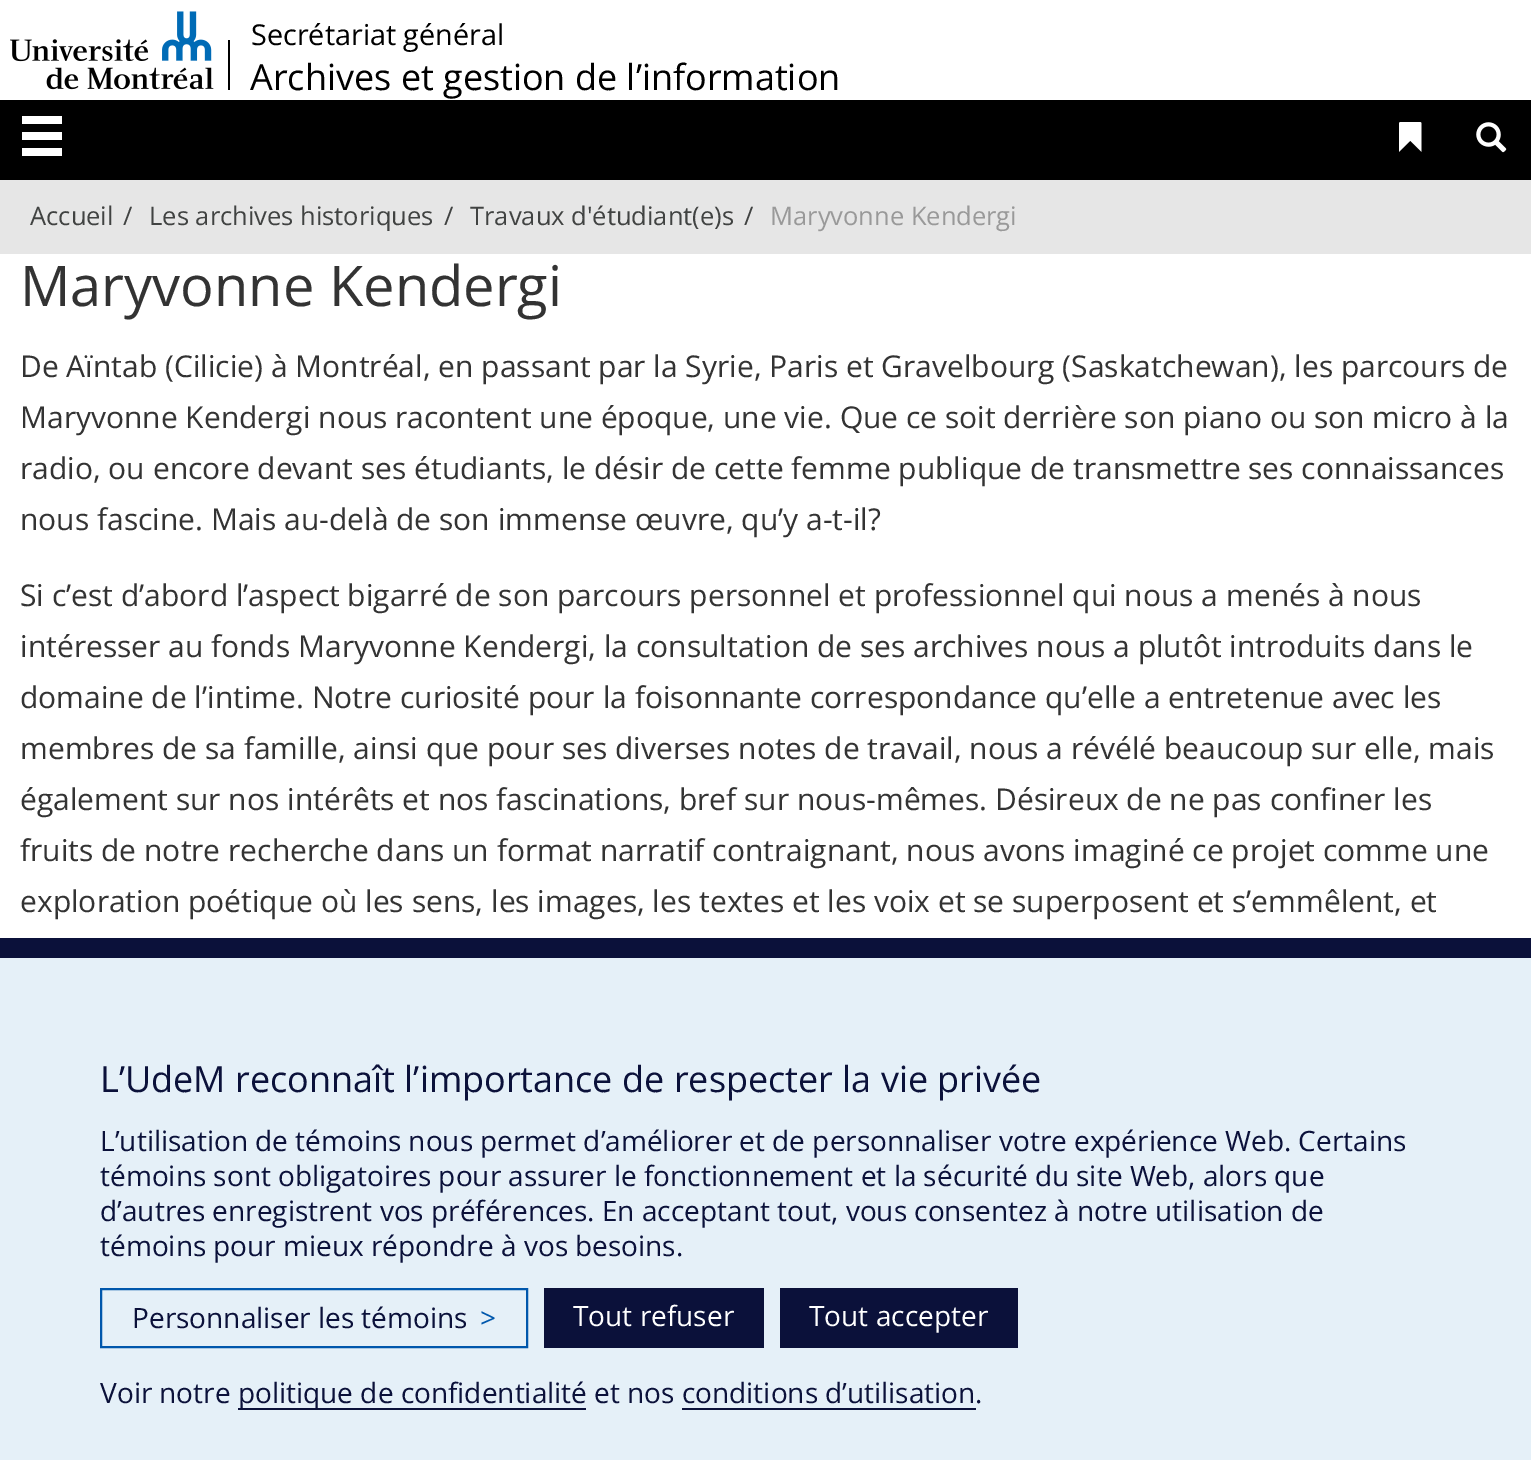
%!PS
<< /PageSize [1531 1460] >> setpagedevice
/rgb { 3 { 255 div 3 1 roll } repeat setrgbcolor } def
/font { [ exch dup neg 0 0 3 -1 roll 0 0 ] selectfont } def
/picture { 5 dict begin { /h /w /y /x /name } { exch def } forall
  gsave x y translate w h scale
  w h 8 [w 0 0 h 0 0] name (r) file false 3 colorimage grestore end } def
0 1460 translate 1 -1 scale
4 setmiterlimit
255 255 255 rgb
0 0 1531 1460 rectfill
(img/1.rgb) 10 11 204 79 picture
[
  [228 40 2 50 0 0 0]
  [0 100 1531 80 0 0 0]
  [22 116 40 8 255 255 255]
  [22 132 40 8 255 255 255]
  [22 148 40 8 255 255 255]
] { aload pop rgb rectfill } forall
(img/2.rgb) 1399 122 23 30 picture
(img/3.rgb) 1476 122 31 31 picture
[
  [0 180 1531 74 230 230 230]
  [0 958 1531 502 229 240 248]
  [0 938 1531 20 11 17 58]
] { aload pop rgb rectfill } forall
0 87 172 rgb
2 setlinewidth
101 1289 426 58 rectstroke
[
  [544 1288 220 60 11 17 58]
  [780 1288 238 60 11 17 58]
  [238 1408 348 2 11 17 58]
  [682 1408 294 2 11 17 58]
] { aload pop rgb rectfill } forall
/OpenSans-Regular 28.75 font
0 0 0 rgb
251 45 moveto (Secrétariat général) show
/OpenSans-Regular 36 font
250 90 moveto (Archives et gestion de l’information) show
/OpenSans-Regular 25.5 font
65 67 66 rgb
[
  [(Accueil) 30 225]
  [(/) 123 225]
  [(Les archives historiques) 149 225]
  [(/) 444 225]
  [(Travaux d'étudiant\(e\)s) 470 225]
  [(/) 744 225]
] { aload pop moveto show } forall
153 153 153 rgb
770 225 moveto (Maryvonne Kendergi) show
/OpenSans-Regular 56 font
51 51 51 rgb
20 306 moveto (Maryvonne Kendergi) show
/OpenSans-Regular 30 font
[
  [(De Aïntab \(Cilicie\) à Montréal, en passant par la Syrie, Paris et Gravelbourg \(Saskatchewan\), les parcours de) 20 377]
  [(Maryvonne Kendergi nous racontent une époque, une vie. Que ce soit derrière son piano ou son micro à la) 20 428]
  [(radio, ou encore devant ses étudiants, le désir de cette femme publique de transmettre ses connaissances) 20 479]
  [(nous fascine. Mais au-delà de son immense œuvre, qu’y a-t-il?) 20 530]
  [(Si c’est d’abord l’aspect bigarré de son parcours personnel et professionnel qui nous a menés à nous) 20 606]
  [(intéresser au fonds Maryvonne Kendergi, la consultation de ses archives nous a plutôt introduits dans le) 20 657]
  [(domaine de l’intime. Notre curiosité pour la foisonnante correspondance qu’elle a entretenue avec les) 20 708]
  [(membres de sa famille, ainsi que pour ses diverses notes de travail, nous a révélé beaucoup sur elle, mais) 20 759]
  [(également sur nos intérêts et nos fascinations, bref sur nous-mêmes. Désireux de ne pas confiner les) 20 810]
  [(fruits de notre recherche dans un format narratif contraignant, nous avons imaginé ce projet comme une) 20 861]
  [(exploration poétique où les sens, les images, les textes et les voix et se superposent et s’emmêlent, et) 20 912]
] { aload pop moveto show } forall
/OpenSans-Regular 36 font
11 17 58 rgb
100 1092 moveto (L’UdeM reconnaît l’importance de respecter la vie privée) show
/OpenSans-Regular 28 font
[
  [(L’utilisation de témoins nous permet d’améliorer et de personnaliser votre expérience Web. Certains) 100 1151]
  [(témoins sont obligatoires pour assurer le fonctionnement et la sécurité du site Web, alors que) 100 1186]
  [(d’autres enregistrent vos préférences. En acceptant tout, vous consentez à notre utilisation de) 100 1221]
  [(témoins pour mieux répondre à vos besoins.) 100 1256]
  [(Personnaliser les témoins) 132 1328]
] { aload pop moveto show } forall
0 87 172 rgb
480 1328 moveto (>) show
255 255 255 rgb
573 1326 moveto (Tout refuser) show
809 1326 moveto (Tout accepter) show
11 17 58 rgb
100 1403 moveto (Voir notre) show
238 1403 moveto (politique de confidentialité et nos conditions d’utilisation.) show
showpage
